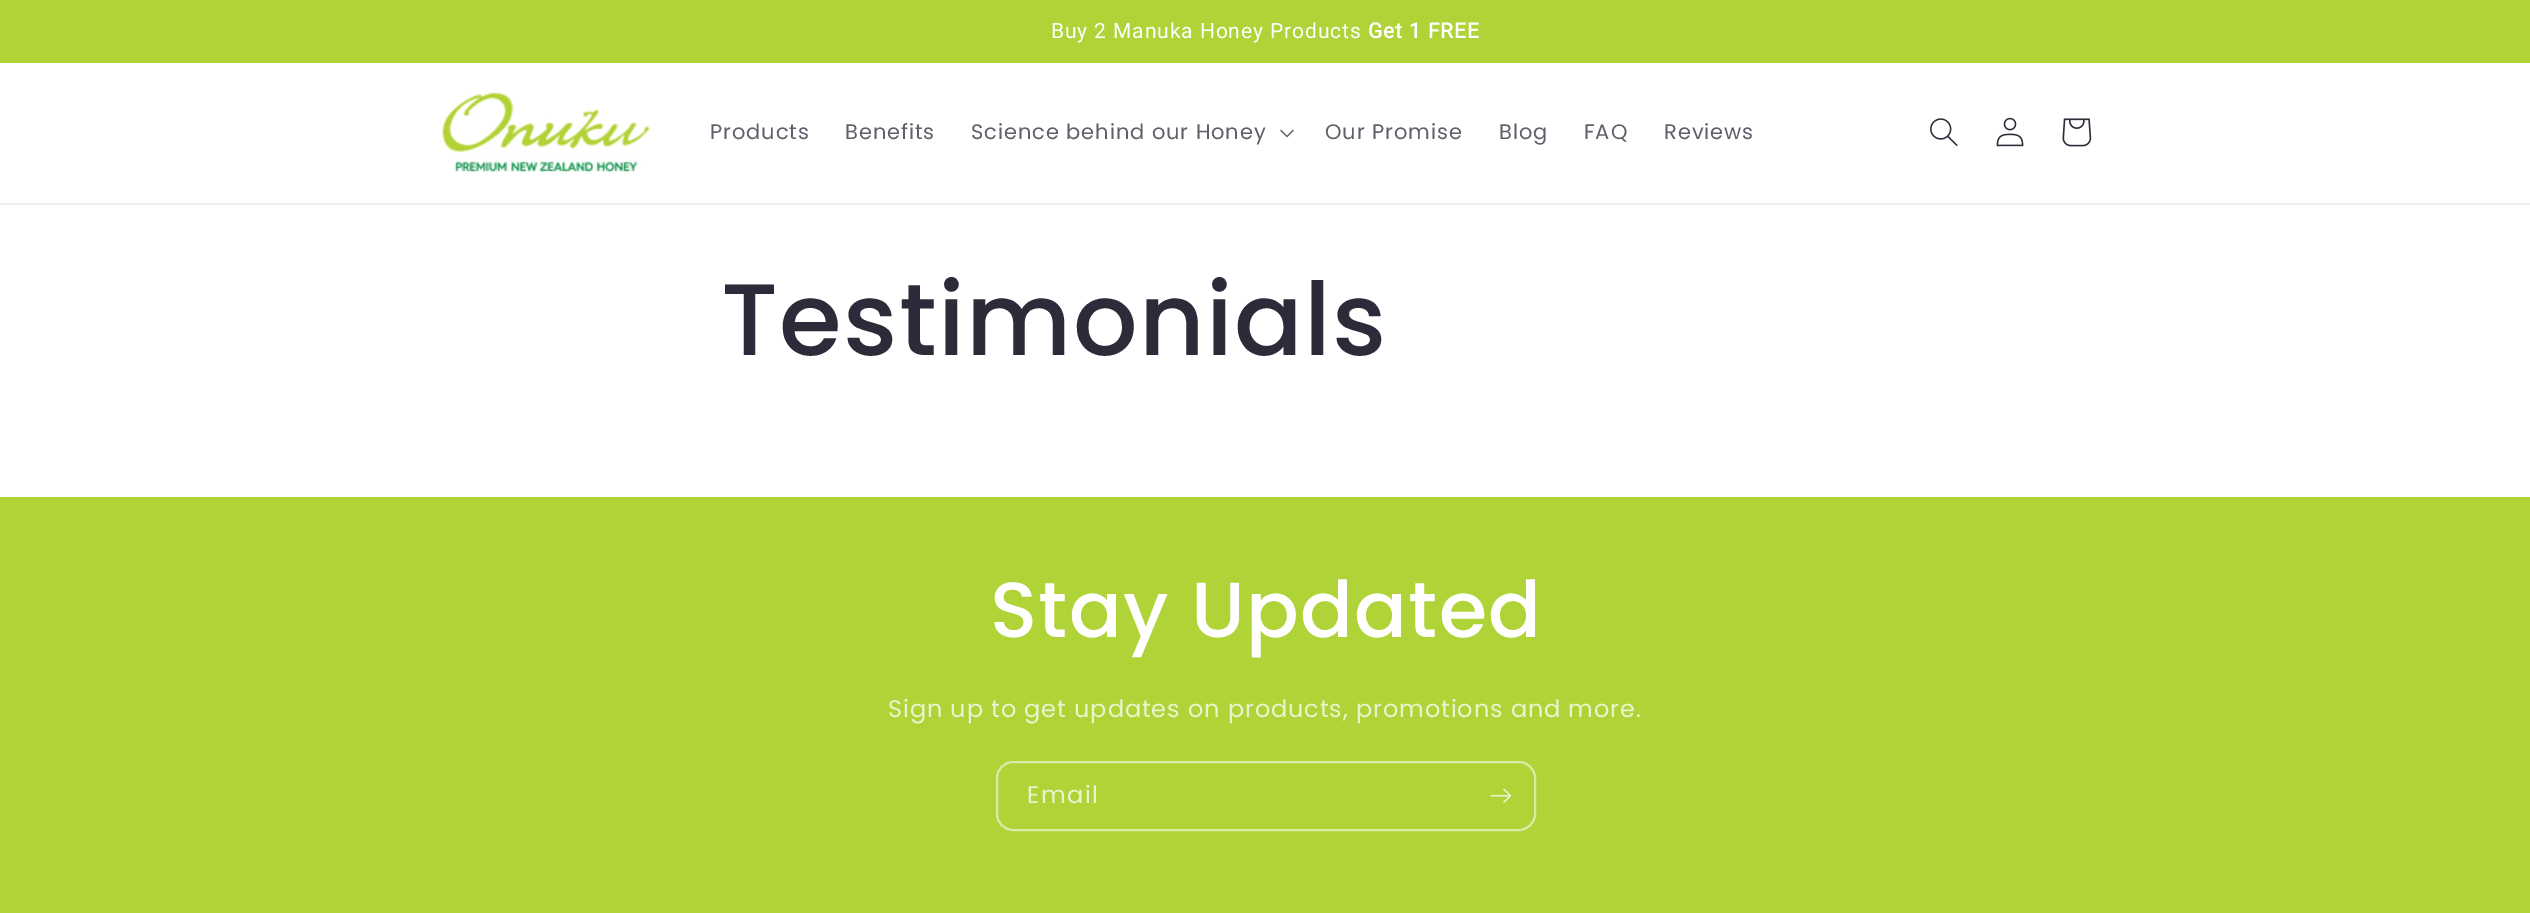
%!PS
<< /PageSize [2530 913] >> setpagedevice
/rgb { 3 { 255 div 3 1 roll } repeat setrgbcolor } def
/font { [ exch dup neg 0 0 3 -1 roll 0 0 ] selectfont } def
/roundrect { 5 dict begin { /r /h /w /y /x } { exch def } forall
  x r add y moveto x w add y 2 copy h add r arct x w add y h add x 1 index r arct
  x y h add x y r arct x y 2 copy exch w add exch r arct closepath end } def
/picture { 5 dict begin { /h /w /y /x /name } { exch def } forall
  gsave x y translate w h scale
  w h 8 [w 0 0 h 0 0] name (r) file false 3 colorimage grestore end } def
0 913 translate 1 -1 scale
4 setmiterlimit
255 255 255 rgb
0 0 2530 913 rectfill
176 211 56 rgb
0 0 2530 63 rectfill
238 238 239 rgb
0 203 2530 2 rectfill
(img/1.rgb) 442 92 208 81 picture
(img/2.rgb) 1280 129 14 9 picture
(img/3.rgb) 1930 118 28 28 picture
(img/4.rgb) 1996 117 28 30 picture
(img/5.rgb) 2062 118 30 29 picture
176 211 56 rgb
0 497 2530 416 rectfill
219 235 165 rgb
2 setlinewidth
997 762 538 68 16 roundrect stroke
(img/6.rgb) 1490 788 22 15 picture
/Roboto-Regular 21 font
255 255 255 rgb
1051 38 moveto 0.9 0 (Buy 2 Manuka Honey Products) ashow
/Roboto-Bold 21 font
1368 38 moveto 0.9 0 (Get 1 FREE) ashow
/Poppins-Regular 21 font
98 95 107 rgb
710 139 moveto 0.9 0 (Products) ashow
845 139 moveto 0.9 0 (Benefits) ashow
971 139 moveto 0.9 0 (Science behind our Honey) ashow
1325 139 moveto 0.9 0 (Our Promise) ashow
1499 139 moveto 0.9 0 (Blog) ashow
1584 139 moveto 0.9 0 (FAQ) ashow
1664 139 moveto 0.9 0 (Reviews) ashow
/Poppins-Medium 101.5 font
46 42 57 rgb
721 355 moveto 1.25 0 (Testimonials) ashow
/Poppins-Medium 78 font
255 255 255 rgb
990 637 moveto 1.25 0 (Stay Updated) ashow
/Poppins-Regular 24 font
235 244 205 rgb
888 717 moveto 0.9 0 (Sign up to get updates on products, promotions and more.) ashow
1027 803 moveto 1.5 0 (Email) ashow
showpage
